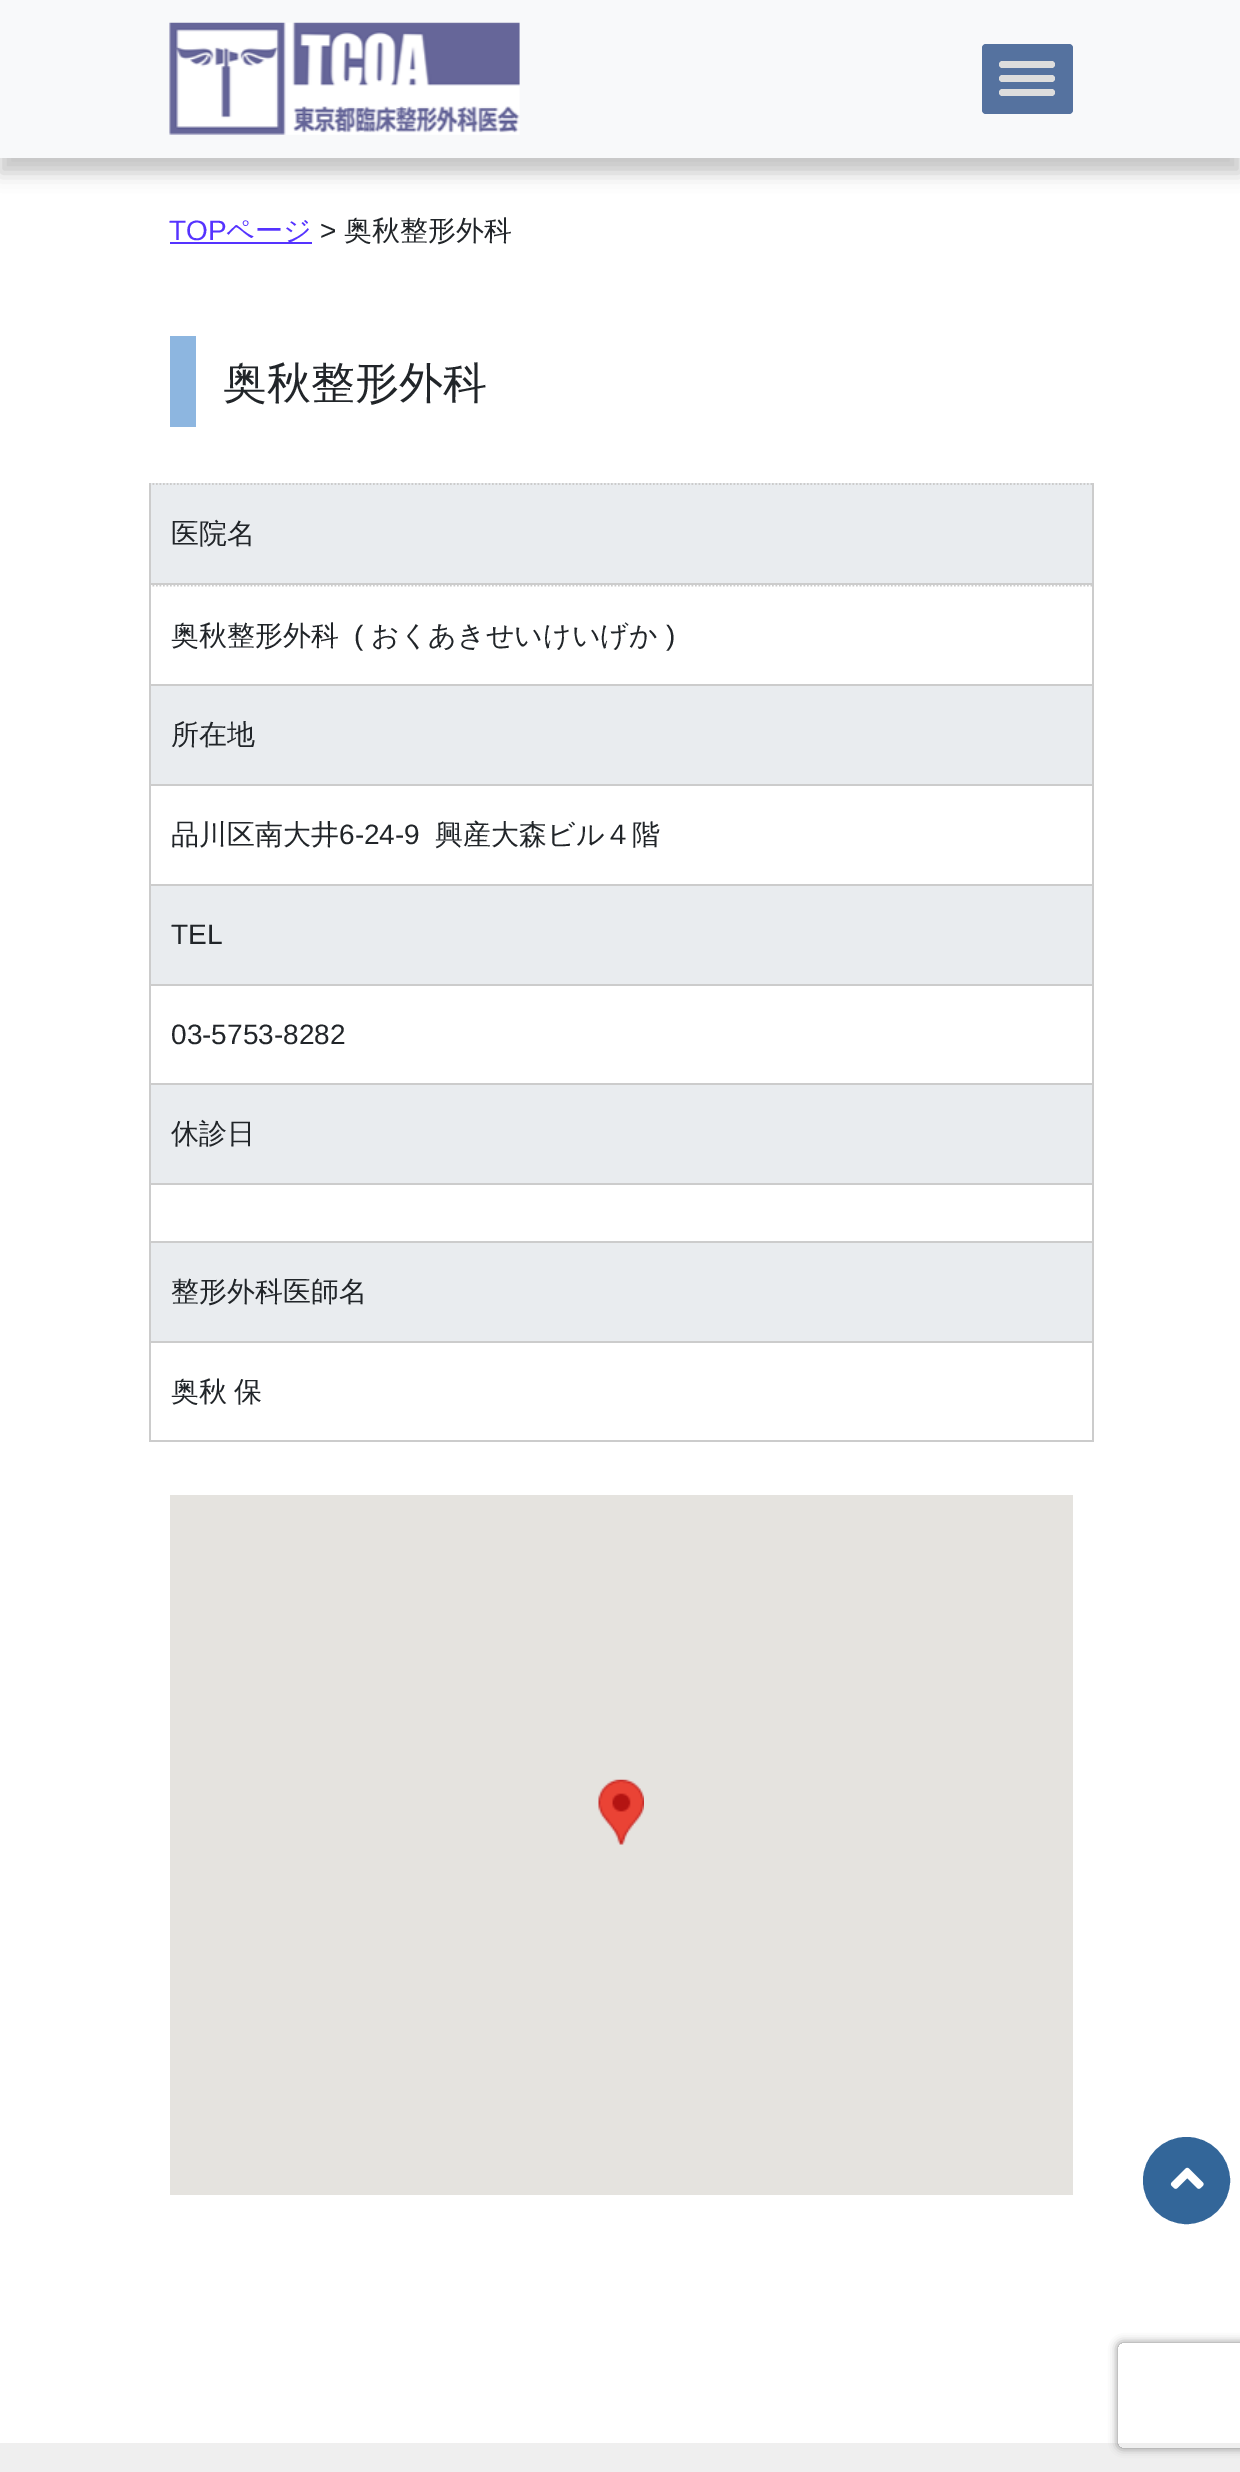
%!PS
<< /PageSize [1240 2472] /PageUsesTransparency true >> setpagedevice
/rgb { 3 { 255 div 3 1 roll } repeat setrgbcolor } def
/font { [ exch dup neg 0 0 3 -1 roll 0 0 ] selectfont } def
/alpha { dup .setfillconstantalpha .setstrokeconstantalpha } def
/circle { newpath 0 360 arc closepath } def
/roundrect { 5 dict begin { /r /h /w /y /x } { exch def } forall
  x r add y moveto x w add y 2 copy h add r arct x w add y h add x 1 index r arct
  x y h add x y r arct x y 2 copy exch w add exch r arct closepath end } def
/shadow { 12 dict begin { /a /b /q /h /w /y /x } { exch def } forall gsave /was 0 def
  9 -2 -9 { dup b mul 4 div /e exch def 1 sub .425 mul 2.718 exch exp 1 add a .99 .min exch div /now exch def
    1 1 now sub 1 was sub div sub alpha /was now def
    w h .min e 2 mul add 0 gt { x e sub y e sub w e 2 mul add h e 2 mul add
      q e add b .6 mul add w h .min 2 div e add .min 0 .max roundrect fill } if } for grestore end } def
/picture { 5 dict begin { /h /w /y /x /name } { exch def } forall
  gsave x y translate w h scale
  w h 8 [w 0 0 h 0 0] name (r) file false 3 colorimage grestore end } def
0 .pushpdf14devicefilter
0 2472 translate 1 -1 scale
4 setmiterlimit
255 255 255 rgb
0 0 1240 2472 rectfill
103 102 102 rgb
0 16 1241 157 0 9 0.38 shadow
248 249 250 rgb
0 0 1240 158 rectfill
(img/1.rgb) 169 22 351 113 picture
85 114 159 rgb
982 44 91 70 4 roundrect fill
221 221 221 rgb
999 61 56 7 3.5 roundrect fill
999 75 56 7 3.5 roundrect fill
999 89 56 7 3.5 roundrect fill
[
  [170 242 142 2 85 51 255]
  [170 336 26 91 141 182 224]
  [151 483 941 100 233 236 239]
] { aload pop rgb rectfill } forall
204 204 204 rgb
1.8 setlinewidth
[1.75 1.75] 0 setdash
149 484 moveto 1094 484 lineto stroke
[
  [1092 483 2 102 204 204 204]
  [149 583 945 2 204 204 204]
  [149 483 2 102 204 204 204]
] { aload pop rgb rectfill } forall
149 585.5 moveto 1094 585.5 lineto stroke
[
  [1092 585 2 400 204 204 204]
  [149 684 945 2 204 204 204]
  [149 585 2 101 204 204 204]
  [151 686 941 98 233 236 239]
  [149 784 945 2 204 204 204]
  [149 686 2 100 204 204 204]
  [149 884 945 2 204 204 204]
  [149 786 2 100 204 204 204]
  [151 886 941 98 233 236 239]
  [149 984 945 2 204 204 204]
  [149 886 2 99 204 204 204]
  [1092 985 2 357 204 204 204]
  [149 1083 945 2 204 204 204]
  [149 985 2 100 204 204 204]
  [151 1085 941 98 233 236 239]
  [149 1183 945 2 204 204 204]
  [149 1085 2 100 204 204 204]
  [149 1241 945 2 204 204 204]
  [149 1185 2 58 204 204 204]
  [151 1243 941 98 233 236 239]
  [149 1341 945 2 204 204 204]
  [149 1243 2 99 204 204 204]
  [1092 1342 2 100 204 204 204]
  [149 1440 945 2 204 204 204]
  [149 1342 2 100 204 204 204]
  [170 1495 903 700 229 227 223]
] { aload pop rgb rectfill } forall
(img/2.rgb) 598 1779 46 66 picture
239 239 239 rgb
0 2443 1240 29 rectfill
51 102 153 rgb
1186.5 2180.5 42.5 circle gsave fill grestore
2 setlinewidth
[] 0 setdash
stroke
(img/3.rgb) 1170 2167 34 22 picture
gsave
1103 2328 moveto 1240 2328 lineto 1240 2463 lineto 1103 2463 lineto closepath 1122 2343 moveto 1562 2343 lineto 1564 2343 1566 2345 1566 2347 curveto 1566 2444 lineto 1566 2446 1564 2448 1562 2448 curveto 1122 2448 lineto 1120 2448 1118 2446 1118 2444 curveto 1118 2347 lineto 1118 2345 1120 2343 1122 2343 curveto closepath eoclip newpath
128 128 128 rgb
1118 2343 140 105 4 4.5 1 shadow
grestore
/LiberationSans-Regular 28 font
85 51 255 rgb
169 240 moveto (TOP) show
/WenQuanYiZenHei-Medium 28 font
226 240 moveto (ページ) show
/LiberationSans-Regular 28 font
33 37 41 rgb
320 240 moveto (>) show
/WenQuanYiZenHei-Medium 28 font
344 240 moveto (奥秋整形外科) show
/WenQuanYiZenHei-Medium 44 font
223 398 moveto (奥秋整形外科) show
/WenQuanYiZenHei-Medium 28 font
171 543 moveto (医院名) show
171 645 moveto (奥秋整形外科) show
/LiberationSans-Regular 28 font
354 645 moveto (\() show
/WenQuanYiZenHei-Medium 28 font
371 645 moveto (おくあきせいけいげか) show
/LiberationSans-Regular 28 font
666 645 moveto (\)) show
/WenQuanYiZenHei-Medium 28 font
171 744 moveto (所在地) show
171 844 moveto (品川区南大井) show
/LiberationSans-Regular 28 font
339 844 moveto (6-24-9) show
/WenQuanYiZenHei-Medium 28 font
435 844 moveto (興産大森ビル４階) show
/LiberationSans-Regular 28 font
171 944 moveto (TEL) show
171 1044 moveto (03-5753-8282) show
/WenQuanYiZenHei-Medium 28 font
171 1143 moveto (休診日) show
171 1301 moveto (整形外科医師名) show
171 1401 moveto -1 0 32 (奥秋 保) widthshow
.poppdf14devicefilter showpage
